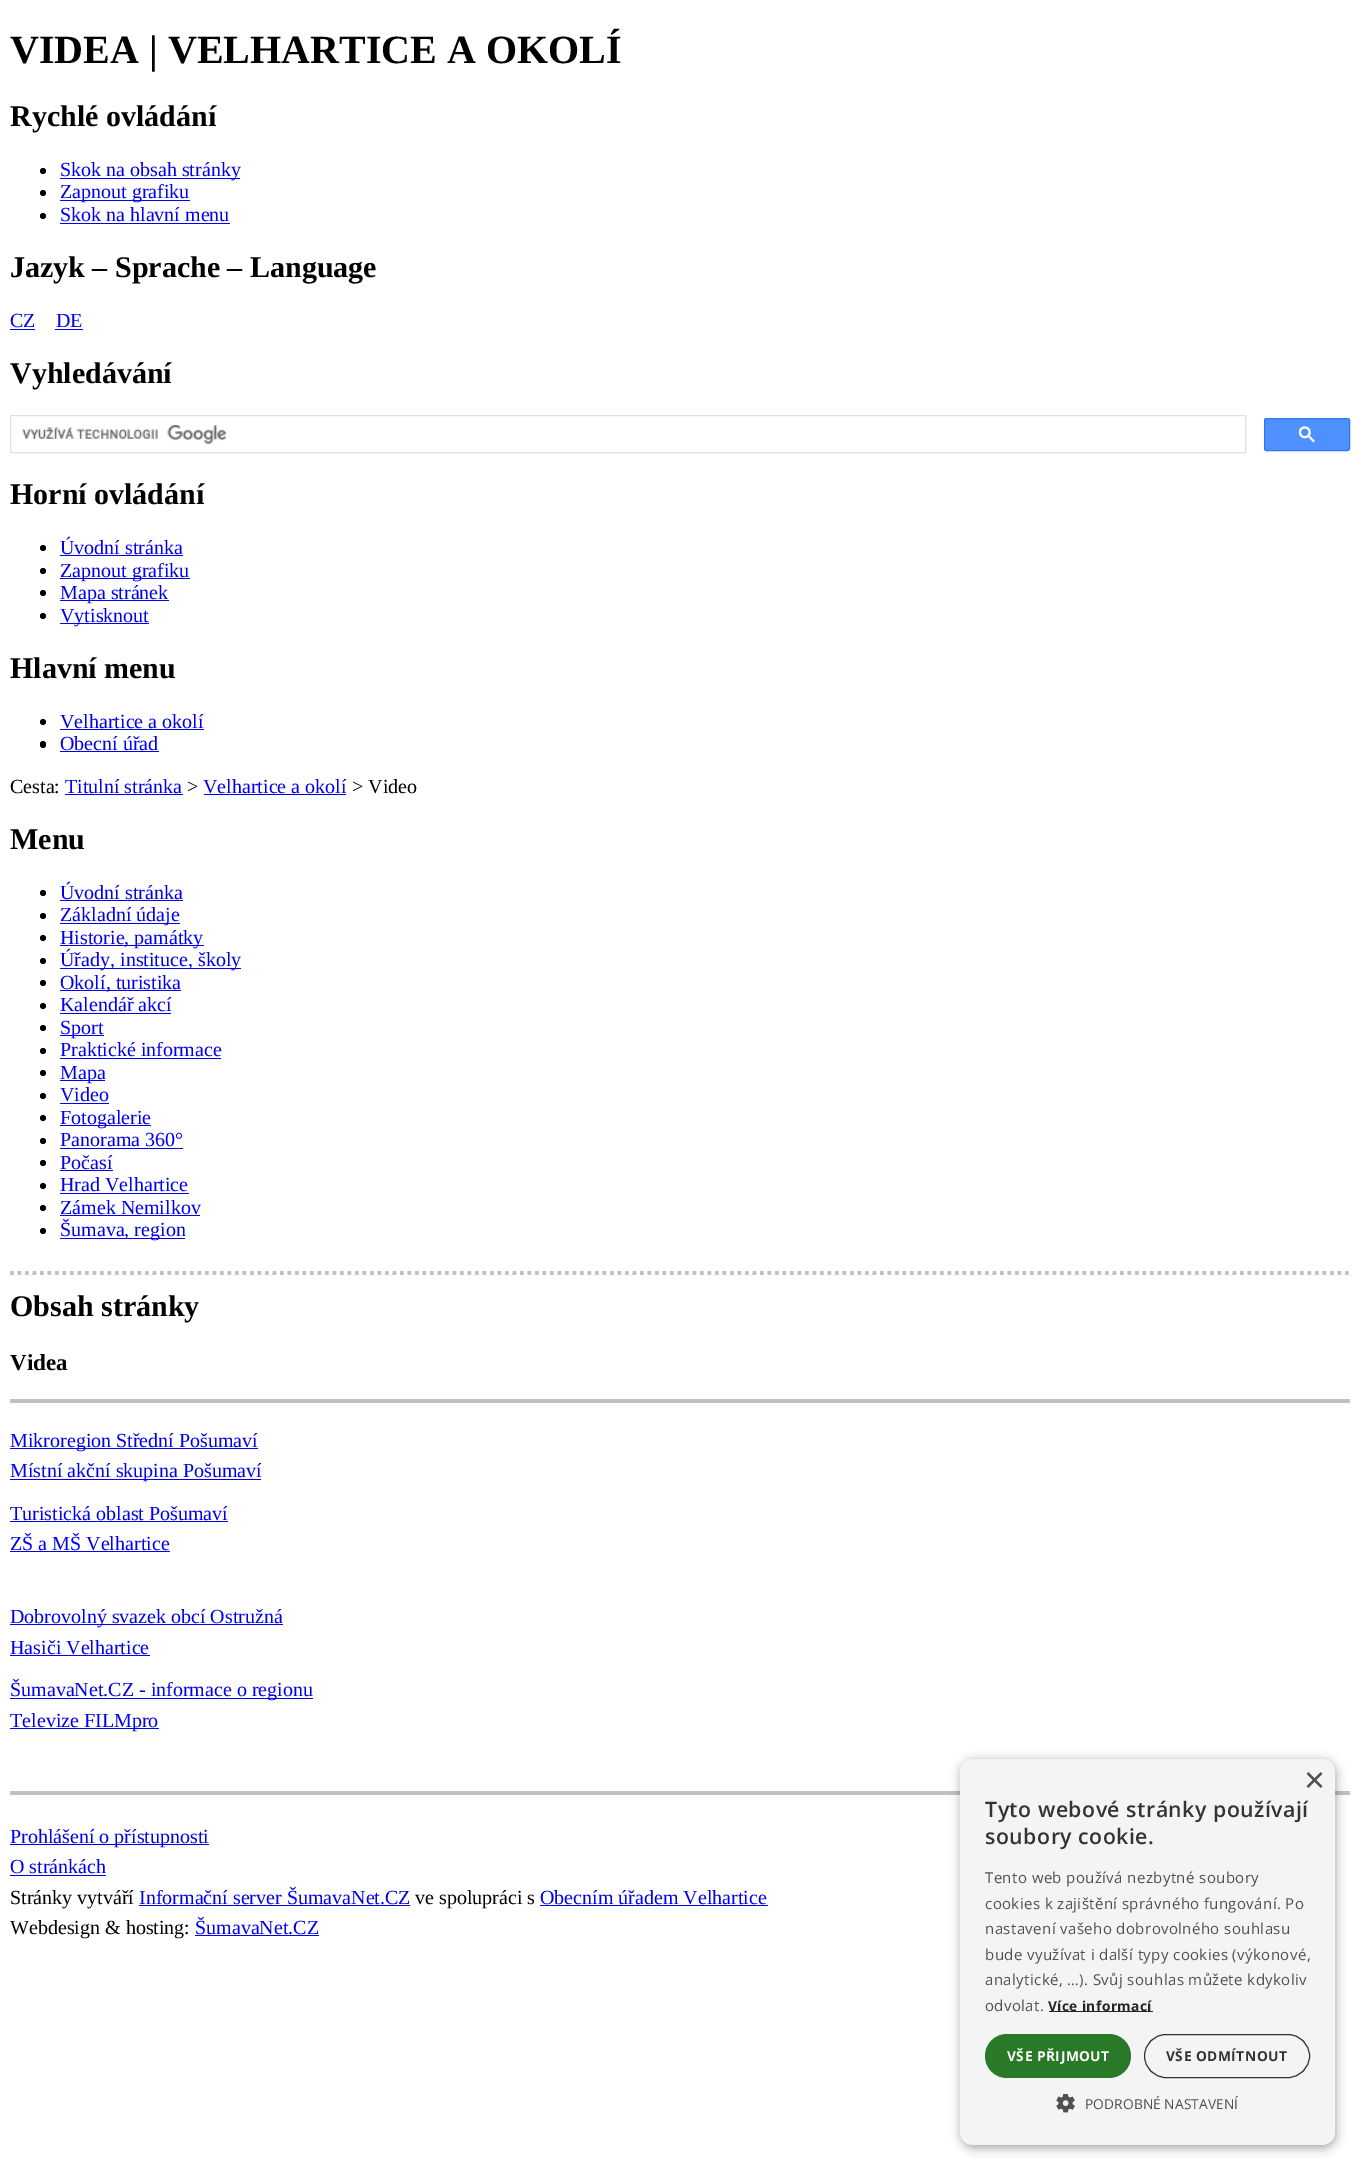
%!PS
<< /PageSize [1360 2170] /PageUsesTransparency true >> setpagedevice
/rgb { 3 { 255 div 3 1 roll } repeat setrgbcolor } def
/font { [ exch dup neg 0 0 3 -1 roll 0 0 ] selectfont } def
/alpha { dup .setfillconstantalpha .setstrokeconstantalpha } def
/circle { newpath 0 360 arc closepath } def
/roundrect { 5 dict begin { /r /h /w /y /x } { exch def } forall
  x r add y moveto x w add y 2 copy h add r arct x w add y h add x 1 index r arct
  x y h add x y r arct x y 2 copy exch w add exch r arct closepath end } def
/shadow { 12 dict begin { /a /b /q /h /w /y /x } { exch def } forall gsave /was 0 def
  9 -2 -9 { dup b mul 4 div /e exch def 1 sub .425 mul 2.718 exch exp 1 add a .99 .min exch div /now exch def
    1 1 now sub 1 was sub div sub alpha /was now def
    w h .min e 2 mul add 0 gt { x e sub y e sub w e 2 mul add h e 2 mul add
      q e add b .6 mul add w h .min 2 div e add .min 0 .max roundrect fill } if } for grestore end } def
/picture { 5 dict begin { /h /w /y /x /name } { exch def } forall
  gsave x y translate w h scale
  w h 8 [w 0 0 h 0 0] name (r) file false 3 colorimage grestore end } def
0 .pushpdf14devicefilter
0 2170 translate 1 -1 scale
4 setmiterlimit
255 255 255 rgb
0 0 1360 2170 rectfill
0 0 0 rgb
43 171 3 circle fill
0 0 238 rgb
60 178 180 1 rectfill
0 0 0 rgb
43 193 3 circle fill
0 0 238 rgb
60 200 130 1 rectfill
0 0 0 rgb
43 216 3 circle fill
[
  [60 223 170 1 0 0 238]
  [10 329 25 1 0 0 238]
  [55 329 28 1 0 0 238]
] { aload pop rgb rectfill } forall
223 225 229 rgb
10.5 415.5 1235 37 rectstroke
(img/1.rgb) 22 425 205 19 picture
77 144 254 rgb
1264.5 418.5 85 32 2 roundrect gsave fill grestore
48 121 237 rgb
stroke
(img/2.rgb) 1299 426 16 17 picture
0 0 0 rgb
43 548 3 circle fill
0 0 238 rgb
60 555 123 1 rectfill
0 0 0 rgb
43 571 3 circle fill
0 0 238 rgb
60 578 130 1 rectfill
0 0 0 rgb
43 593 3 circle fill
0 0 238 rgb
60 600 109 1 rectfill
0 0 0 rgb
43 616 3 circle fill
0 0 238 rgb
60 623 89 1 rectfill
0 0 0 rgb
43 722 3 circle fill
0 0 238 rgb
60 729 144 1 rectfill
0 0 0 rgb
40 741 6 7 3 roundrect fill
[
  [60 751 99 1 0 0 238]
  [65 794 118 1 0 0 238]
  [204 794 142 1 0 0 238]
] { aload pop rgb rectfill } forall
0 0 0 rgb
43 893 3 circle fill
0 0 238 rgb
60 900 123 1 rectfill
0 0 0 rgb
43 916 3 circle fill
0 0 238 rgb
60 923 120 1 rectfill
0 0 0 rgb
43 938 3 circle fill
0 0 238 rgb
60 945 144 1 rectfill
0 0 0 rgb
43 961 3 circle fill
0 0 238 rgb
60 968 181 1 rectfill
0 0 0 rgb
43 983 3 circle fill
0 0 238 rgb
60 990 121 1 rectfill
0 0 0 rgb
43 1006 3 circle fill
0 0 238 rgb
60 1013 111 1 rectfill
0 0 0 rgb
43 1028 3 circle fill
0 0 238 rgb
60 1035 44 1 rectfill
0 0 0 rgb
43 1051 3 circle fill
0 0 238 rgb
60 1058 161 1 rectfill
0 0 0 rgb
43 1073 3 circle fill
0 0 238 rgb
60 1080 45 1 rectfill
0 0 0 rgb
43 1096 3 circle fill
0 0 238 rgb
60 1103 49 1 rectfill
0 0 0 rgb
43 1118 3 circle fill
0 0 238 rgb
60 1125 91 1 rectfill
0 0 0 rgb
43 1141 3 circle fill
0 0 238 rgb
60 1148 123 1 rectfill
0 0 0 rgb
43 1163 3 circle fill
0 0 238 rgb
60 1170 53 1 rectfill
0 0 0 rgb
43 1186 3 circle fill
0 0 238 rgb
60 1193 129 1 rectfill
0 0 0 rgb
43 1208 3 circle fill
0 0 238 rgb
60 1215 140 1 rectfill
0 0 0 rgb
43 1231 3 circle fill
0 0 238 rgb
60 1238 125 1 rectfill
192 192 192 rgb
3.8 setlinewidth
[3.75 3.75] 0 setdash
10 1273 moveto 1350 1273 lineto stroke
[
  [10 1399 1340 4 192 192 192]
  [10 1448 248 1 0 0 238]
  [10 1479 251 1 0 0 238]
  [10 1521 218 1 0 0 238]
  [10 1551 160 1 0 0 238]
  [10 1624 273 1 0 0 238]
  [10 1655 140 1 0 0 238]
  [10 1698 303 1 0 0 238]
  [10 1728 149 1 0 0 238]
  [10 1791 1340 4 192 192 192]
  [10 1844 199 1 0 0 238]
  [10 1875 96 1 0 0 238]
  [139 1905 271 1 0 0 238]
  [540 1905 228 1 0 0 238]
  [195 1935 124 1 0 0 238]
] { aload pop rgb rectfill } forall
0 0 0 rgb
961 1761 375 387 13 5 0.35 shadow
244 244 244 rgb
960 1759 375 386 13 roundrect fill
37 37 37 rgb
1049 2011 104 1 rectfill
41 121 41 rgb
985 2034 146 44 22 roundrect fill
51 51 51 rgb
1 setlinewidth
[] 0 setdash
1144.5 2034.5 165 43 21.5 roundrect stroke
(img/3.rgb) 1056 2094 19 19 picture
/LiberationSerif-Bold 40 font
0 0 0 rgb
10 63 moveto (VIDEA | VELHARTICE A OKOLÍ) show
/LiberationSerif-Bold 30 font
10 126 moveto (Rychlé ovládání) show
/LiberationSerif-Regular 20 font
0 0 238 rgb
[
  [(Skok na obsah stránky) 60 176]
  [(Zapnout grafiku) 60 198]
  [(Skok na hlavní menu) 60 221]
] { aload pop moveto show } forall
/LiberationSerif-Bold 30 font
0 0 0 rgb
10 277 moveto (Jazyk – Sprache – Language) show
/LiberationSerif-Regular 20 font
0 0 238 rgb
10 327 moveto (CZ) show
56 327 moveto (DE) show
/LiberationSerif-Bold 30 font
0 0 0 rgb
10 383 moveto (Vyhledávání) show
10 504 moveto (Horní ovládání) show
/LiberationSerif-Regular 20 font
0 0 238 rgb
[
  [(Úvodní stránka) 60 554]
  [(Zapnout grafiku) 60 577]
  [(Mapa stránek) 60 599]
  [(Vytisknout) 60 622]
] { aload pop moveto show } forall
/LiberationSerif-Bold 30 font
0 0 0 rgb
10 678 moveto (Hlavní menu) show
/LiberationSerif-Regular 20 font
0 0 238 rgb
60 728 moveto (Velhartice a okolí) show
60 750 moveto (Obecní úřad) show
0 0 0 rgb
10 793 moveto (Cesta:) show
0 0 238 rgb
65 793 moveto (Titulní stránka) show
0 0 0 rgb
187 793 moveto (>) show
0 0 238 rgb
203 793 moveto (Velhartice a okolí) show
0 0 0 rgb
352 793 moveto (> Video) show
/LiberationSerif-Bold 30 font
10 849 moveto (Menu) show
/LiberationSerif-Regular 20 font
0 0 238 rgb
[
  [(Úvodní stránka) 60 899]
  [(Základní údaje) 60 921]
  [(Historie, památky) 60 944]
  [(Úřady, instituce, školy) 60 966]
  [(Okolí, turistika) 60 989]
  [(Kalendář akcí) 60 1011]
  [(Sport) 60 1034]
  [(Praktické informace) 60 1056]
  [(Mapa) 60 1079]
  [(Video) 60 1101]
  [(Fotogalerie) 60 1124]
  [(Panorama 360°) 60 1146]
  [(Počasí) 60 1169]
  [(Hrad Velhartice) 60 1191]
  [(Zámek Nemilkov) 60 1214]
  [(Šumava, region) 60 1236]
] { aload pop moveto show } forall
/LiberationSerif-Bold 30 font
0 0 0 rgb
10 1316 moveto (Obsah stránky) show
/LiberationSerif-Bold 23 font
10 1370 moveto (Videa) show
/LiberationSerif-Regular 20 font
0 0 238 rgb
[
  [(Mikroregion Střední Pošumaví) 10 1447]
  [(Místní akční skupina Pošumaví) 10 1477]
  [(Turistická oblast Pošumaví) 10 1520]
  [(ZŠ a MŠ Velhartice) 10 1550]
  [(Dobrovolný svazek obcí Ostružná) 10 1623]
  [(Hasiči Velhartice) 10 1654]
  [(ŠumavaNet.CZ - informace o regionu) 10 1696]
  [(Televize FILMpro) 10 1727]
  [(Prohlášení o přístupnosti) 10 1843]
  [(O stránkách) 10 1873]
] { aload pop moveto show } forall
0 0 0 rgb
10 1904 moveto (Stránky vytváří) show
0 0 238 rgb
139 1904 moveto (Informační server ŠumavaNet.CZ) show
0 0 0 rgb
415 1904 moveto (ve spolupráci s) show
0 0 238 rgb
540 1904 moveto (Obecním úřadem Velhartice) show
0 0 0 rgb
10 1934 moveto (Webdesign & hosting:) show
0 0 238 rgb
195 1934 moveto (ŠumavaNet.CZ) show
/LiberationSans-Regular 36 font
80 80 80 rgb
1304 1792 moveto (×) show
/OpenSans-SemiBold 21.25 font
51 51 51 rgb
985 1817 moveto 0.5 0 (Tyto webové stránky používají) ashow
985 1844 moveto 0.5 0 (soubory cookie.) ashow
/OpenSans-Regular 15 font
80 80 80 rgb
985 1883 moveto 0.4 0 (Tento web používá nezbytné soubory) ashow
985 1909 moveto 0.4 0 (cookies k zajištění správného fungování. Po) ashow
985 1934 moveto 0.4 0 (nastavení vašeho dobrovolného souhlasu) ashow
985 1960 moveto 0.4 0 (bude využívat i další typy cookies \(výkonové,) ashow
985 1985 moveto 0.4 0 (analytické, …\). Svůj souhlas můžete kdykoliv) ashow
985 2011 moveto 0.4 0 (odvolat.) ashow
/OpenSans-Bold 13.75 font
37 37 37 rgb
1048 2011 moveto 0.4 0 (Více informací) ashow
255 255 255 rgb
1007 2061 moveto 0.5 0 (VŠE PŘIJMOUT) ashow
51 51 51 rgb
1166 2061 moveto 0.5 0 (VŠE ODMÍTNOUT) ashow
/OpenSans-Regular 13.75 font
80 80 80 rgb
1085 2109 moveto 0.1 0 (PODROBNÉ NASTAVENÍ) ashow
.poppdf14devicefilter showpage
